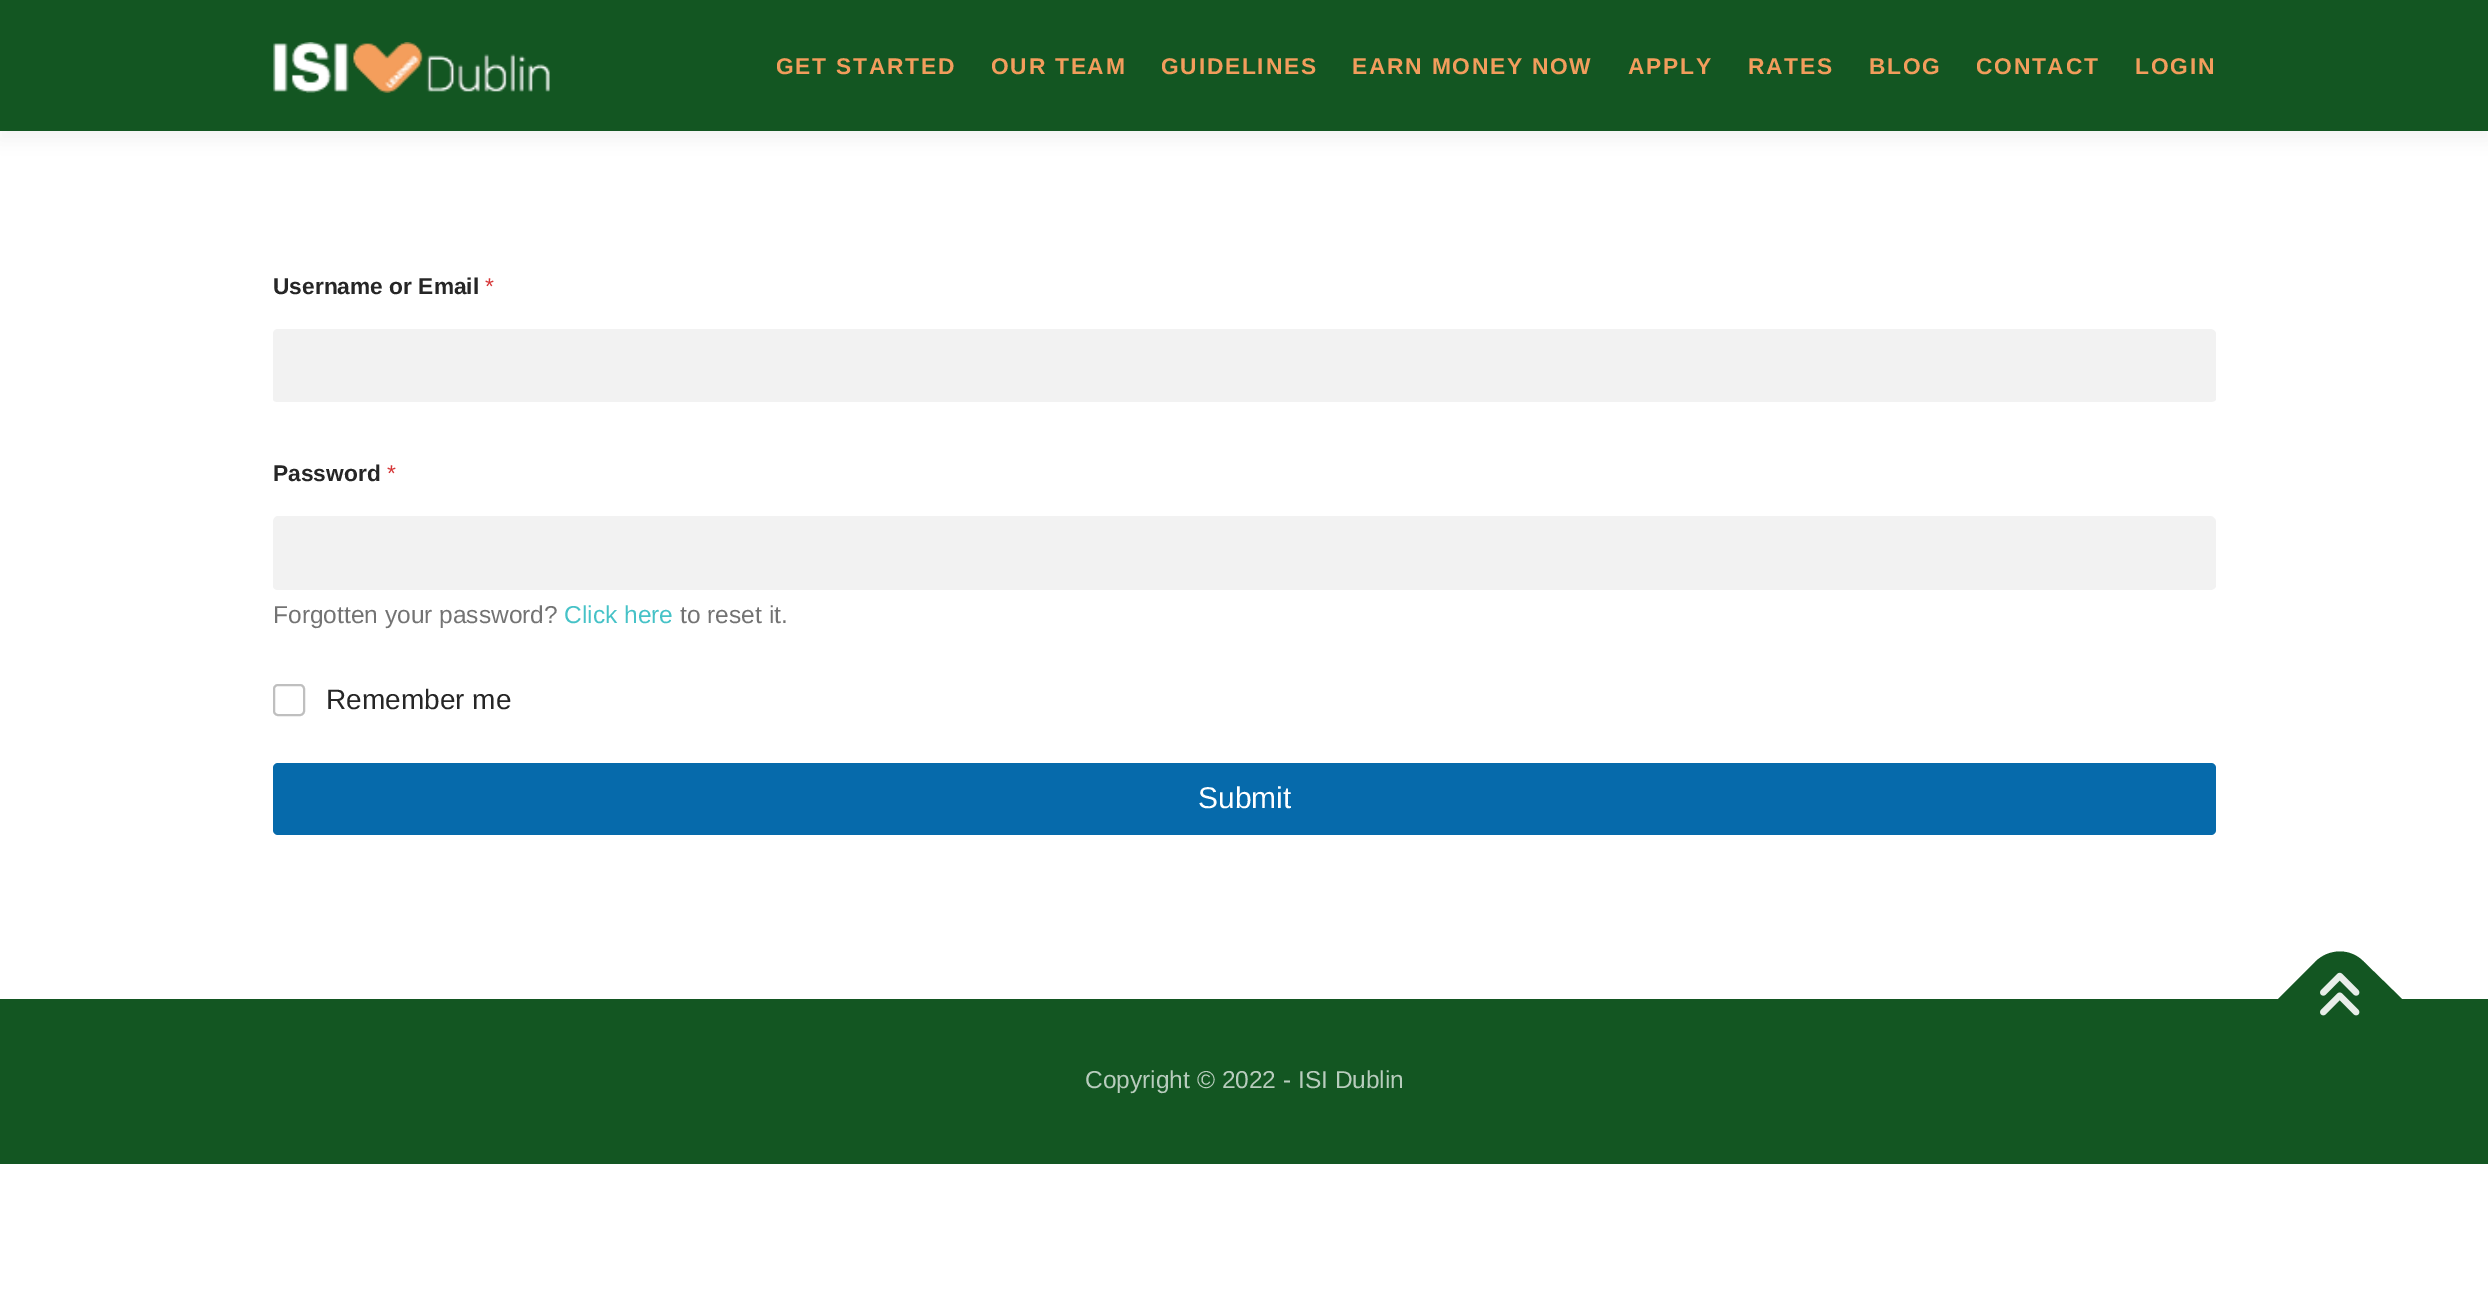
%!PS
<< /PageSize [2488 1291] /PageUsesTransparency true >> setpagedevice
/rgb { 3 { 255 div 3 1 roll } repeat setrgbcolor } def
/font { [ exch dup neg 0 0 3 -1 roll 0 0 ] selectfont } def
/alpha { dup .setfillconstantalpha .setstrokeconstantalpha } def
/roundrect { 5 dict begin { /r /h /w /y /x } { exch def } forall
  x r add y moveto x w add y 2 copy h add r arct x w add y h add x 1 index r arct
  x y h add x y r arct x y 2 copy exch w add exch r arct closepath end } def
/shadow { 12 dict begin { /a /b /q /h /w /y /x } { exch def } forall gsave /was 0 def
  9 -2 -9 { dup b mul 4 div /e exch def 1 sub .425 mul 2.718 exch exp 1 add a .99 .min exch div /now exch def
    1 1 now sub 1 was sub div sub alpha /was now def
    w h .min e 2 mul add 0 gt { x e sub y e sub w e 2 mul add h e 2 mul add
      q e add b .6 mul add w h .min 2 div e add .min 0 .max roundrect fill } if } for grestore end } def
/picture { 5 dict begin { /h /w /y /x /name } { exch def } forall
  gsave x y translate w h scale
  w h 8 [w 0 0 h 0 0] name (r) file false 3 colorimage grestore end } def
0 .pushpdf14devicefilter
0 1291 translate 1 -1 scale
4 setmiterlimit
255 255 255 rgb
0 0 2488 1291 rectfill
50 50 50 rgb
0 9 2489 131 0 9 0.06 shadow
19 86 34 rgb
0 0 2488 131 rectfill
(img/1.rgb) 273 42 277 51 picture
242 242 242 rgb
278 329 moveto 2210 329 lineto 2213 329 2216 331 2216 334 curveto 2216 399 lineto 2216 401 2213 402 2210 402 curveto 278 402 lineto 275 402 273 401 273 399 curveto 273 334 lineto 273 331 275 329 278 329 curveto closepath fill
278 516 moveto 2210 516 lineto 2213 516 2216 519 2216 522 curveto 2216 586 lineto 2216 588 2213 590 2210 590 curveto 278 590 lineto 275 590 273 588 273 586 curveto 273 522 lineto 273 519 275 516 278 516 curveto closepath fill
191 191 191 rgb
2 setlinewidth
274 685 30 30 4 roundrect stroke
6 106 171 rgb
273 763 1943 72 5 roundrect fill
19 86 34 rgb
0 999 2488 165 rectfill
2278 999 moveto 2315 962 lineto 2329 948 2351 948 2364 962 curveto 2402 999 lineto 2340 1061 lineto closepath fill
(img/2.rgb) 2320 972 40 44 picture
/LiberationSans-Bold 22.75 font
242 157 92 rgb
776 74 moveto 1.75 0 (GET STARTED) ashow
991 74 moveto 1.75 0 (OUR TEAM) ashow
1161 74 moveto 1.75 0 (GUIDELINES) ashow
1352 74 moveto 1.75 0 (EARN MONEY NOW) ashow
1628 74 moveto 1.75 0 (APPLY) ashow
1748 74 moveto 1.75 0 (RATES) ashow
1869 74 moveto 1.75 0 (BLOG) ashow
1976 74 moveto 1.75 0 (CONTACT) ashow
2135 74 moveto 1.75 0 (LOGIN) ashow
38 38 38 rgb
273 294 moveto (Username or Email) show
/LiberationSans-Regular 22.75 font
214 54 55 rgb
485 294 moveto (*) show
/LiberationSans-Bold 22.75 font
38 38 38 rgb
273 481 moveto (Password) show
/LiberationSans-Regular 22.75 font
214 54 55 rgb
387 481 moveto (*) show
/LiberationSans-Regular 24.5 font
115 115 115 rgb
273 623 moveto (Forgotten your password?) show
70 194 199 rgb
564 623 moveto (Click here) show
115 115 115 rgb
680 623 moveto (to reset it.) show
/LiberationSans-Regular 28 font
38 38 38 rgb
326 709 moveto (Remember me) show
/LiberationSans-Regular 30 font
255 255 255 rgb
1198 808 moveto (Submit) show
/LiberationSans-Regular 24.5 font
184 204 189 rgb
1085 1088 moveto (Copyright © 2022 - ISI Dublin) show
.poppdf14devicefilter showpage
